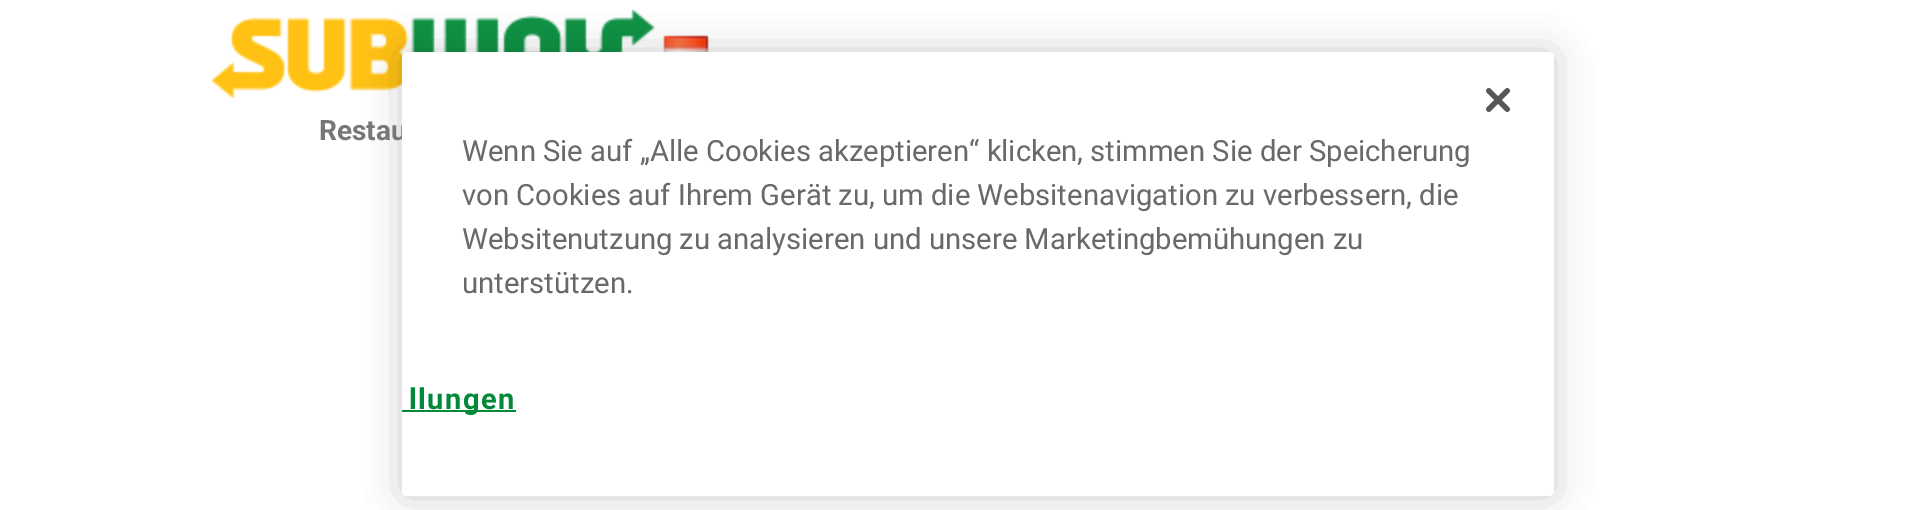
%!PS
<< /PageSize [1920 510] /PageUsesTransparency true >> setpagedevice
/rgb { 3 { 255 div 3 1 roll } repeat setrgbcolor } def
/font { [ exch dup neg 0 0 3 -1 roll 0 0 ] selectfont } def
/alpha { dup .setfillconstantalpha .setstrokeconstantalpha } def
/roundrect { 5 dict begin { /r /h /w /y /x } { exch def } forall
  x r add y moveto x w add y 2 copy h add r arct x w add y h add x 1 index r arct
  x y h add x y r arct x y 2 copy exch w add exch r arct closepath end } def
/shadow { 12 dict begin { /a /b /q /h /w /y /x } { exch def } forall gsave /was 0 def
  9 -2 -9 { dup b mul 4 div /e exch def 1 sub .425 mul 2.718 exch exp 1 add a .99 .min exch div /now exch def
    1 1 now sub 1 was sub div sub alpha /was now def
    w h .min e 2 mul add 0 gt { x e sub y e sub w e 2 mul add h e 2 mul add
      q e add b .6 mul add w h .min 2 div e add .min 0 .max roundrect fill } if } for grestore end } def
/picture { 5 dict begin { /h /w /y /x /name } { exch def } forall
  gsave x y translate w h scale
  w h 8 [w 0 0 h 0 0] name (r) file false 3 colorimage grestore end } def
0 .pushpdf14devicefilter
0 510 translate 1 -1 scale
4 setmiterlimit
255 255 255 rgb
0 0 1920 510 rectfill
(img/1.rgb) 212 10 443 88 picture
(img/2.rgb) 663 35 46 17 picture
0 0 0 rgb
402 52 1152 444 5 18 0.2 shadow
/Roboto-Bold 28 font
119 119 119 rgb
319 140 moveto (Restau) show
255 255 255 rgb
402 52 1152 444 5 roundrect fill
(img/3.rgb) 1486 88 24 24 picture
/Roboto-Regular 29.25 font
105 105 105 rgb
[
  [(Wenn Sie auf „Alle Cookies akzeptieren“ klicken, stimmen Sie der Speicherung) 462 161]
  [(von Cookies auf Ihrem Gerät zu, um die Websitenavigation zu verbessern, die) 462 205]
  [(Websitenutzung zu analysieren und unsere Marketingbemühungen zu) 462 249]
  [(unterstützen.) 462 293]
] { aload pop moveto show } forall
0 137 56 rgb
402 410 114 2 rectfill
/Roboto-Bold 29 font
409 409 moveto 1.5 0 (llungen) ashow
.poppdf14devicefilter showpage
